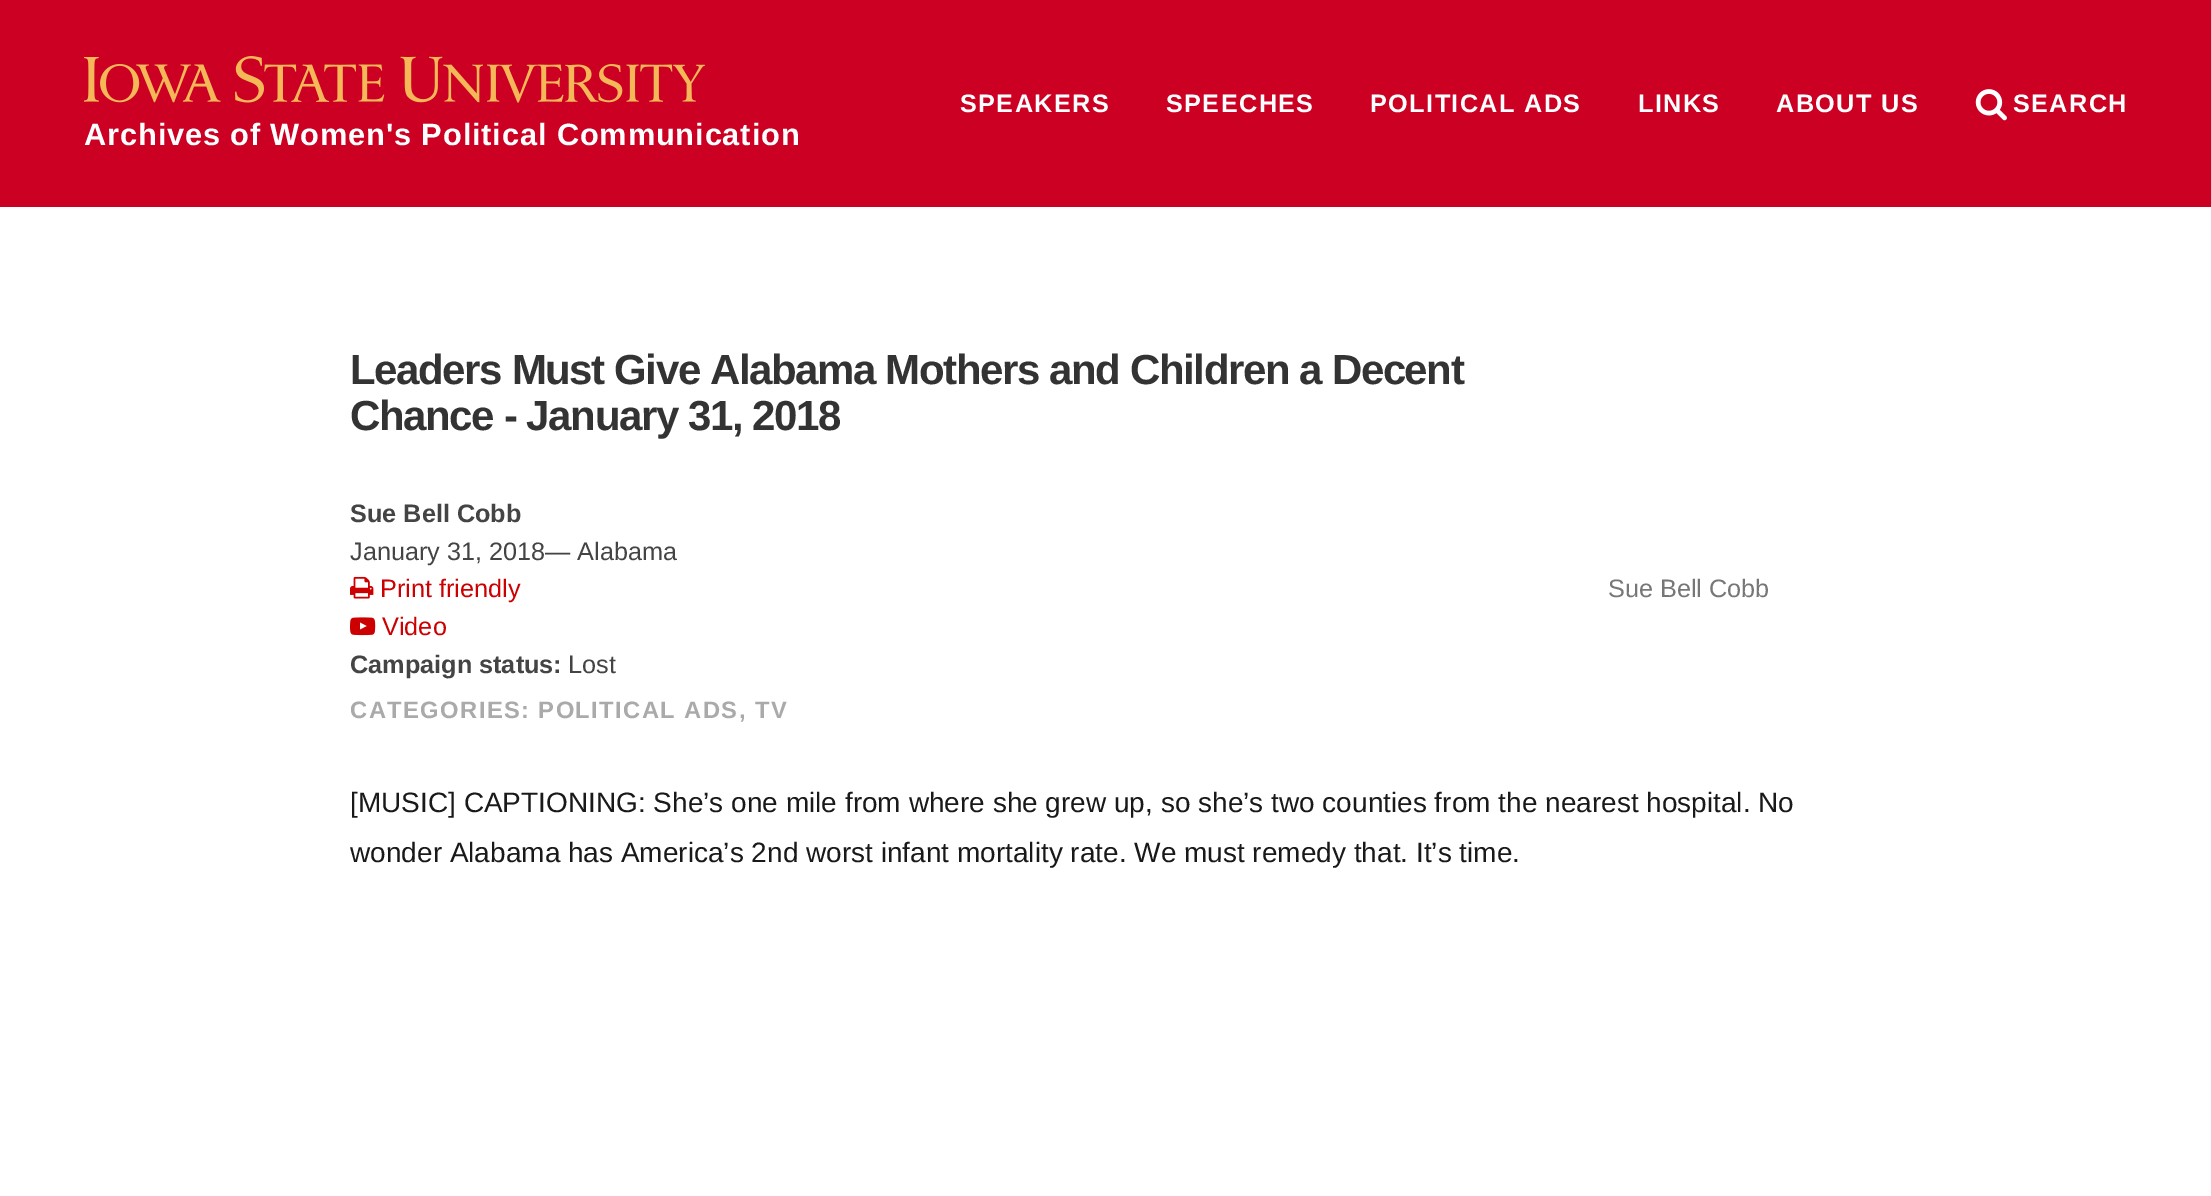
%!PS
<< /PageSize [2211 1196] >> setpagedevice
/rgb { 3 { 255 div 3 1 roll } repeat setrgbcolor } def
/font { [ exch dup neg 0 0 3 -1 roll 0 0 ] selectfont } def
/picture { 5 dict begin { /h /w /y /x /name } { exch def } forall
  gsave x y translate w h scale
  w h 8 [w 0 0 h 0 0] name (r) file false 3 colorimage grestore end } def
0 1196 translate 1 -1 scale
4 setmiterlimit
255 255 255 rgb
0 0 2211 1196 rectfill
204 0 34 rgb
0 0 2211 207 rectfill
(img/1.rgb) 1975 89 32 32 picture
(img/2.rgb) 84 56 621 47 picture
(img/3.rgb) 350 576 24 23 picture
(img/4.rgb) 350 617 26 19 picture
/LiberationSans-Bold 25.25 font
255 255 255 rgb
960 112 moveto 1.4 0 (SPEAKERS) ashow
1166 112 moveto 1.4 0 (SPEECHES) ashow
1370 112 moveto 1.4 0 (POLITICAL ADS) ashow
1638 112 moveto 1.4 0 (LINKS) ashow
1776 112 moveto 1.4 0 (ABOUT US) ashow
2013 112 moveto 1.4 0 (SEARCH) ashow
/LiberationSans-Bold 30.8 font
84 145 moveto 0.85 0 (Archives of Women's Political Communication) ashow
/LiberationSans-Bold 42 font
51 51 51 rgb
350 384 moveto -1.4 0 (Leaders Must Give Alabama Mothers and Children a Decent) ashow
350 430 moveto -1.4 0 (Chance - January 31, 2018) ashow
/LiberationSans-Bold 25.25 font
68 68 68 rgb
350 522 moveto (Sue Bell Cobb) show
/LiberationSans-Regular 25.25 font
350 560 moveto (January 31, 2018— Alabama) show
204 0 0 rgb
380 597 moveto (Print friendly) show
382 635 moveto (Video) show
/LiberationSans-Bold 25.25 font
68 68 68 rgb
350 673 moveto (Campaign status:) show
/LiberationSans-Regular 25.25 font
568 673 moveto (Lost) show
119 119 119 rgb
1608 597 moveto (Sue Bell Cobb) show
/LiberationSans-Bold 23.75 font
170 170 170 rgb
350 718 moveto 1.4 0 (CATEGORIES: POLITICAL ADS) ashow
739 718 moveto 1.4 0 (, TV) ashow
/LiberationSans-Regular 28 font
25 25 25 rgb
350 812 moveto ([MUSIC] CAPTIONING: She’s one mile from where she grew up, so she’s two counties from the nearest hospital. No) show
350 862 moveto (wonder Alabama has America’s 2nd worst infant mortality rate. We must remedy that. It’s time.) show
showpage
